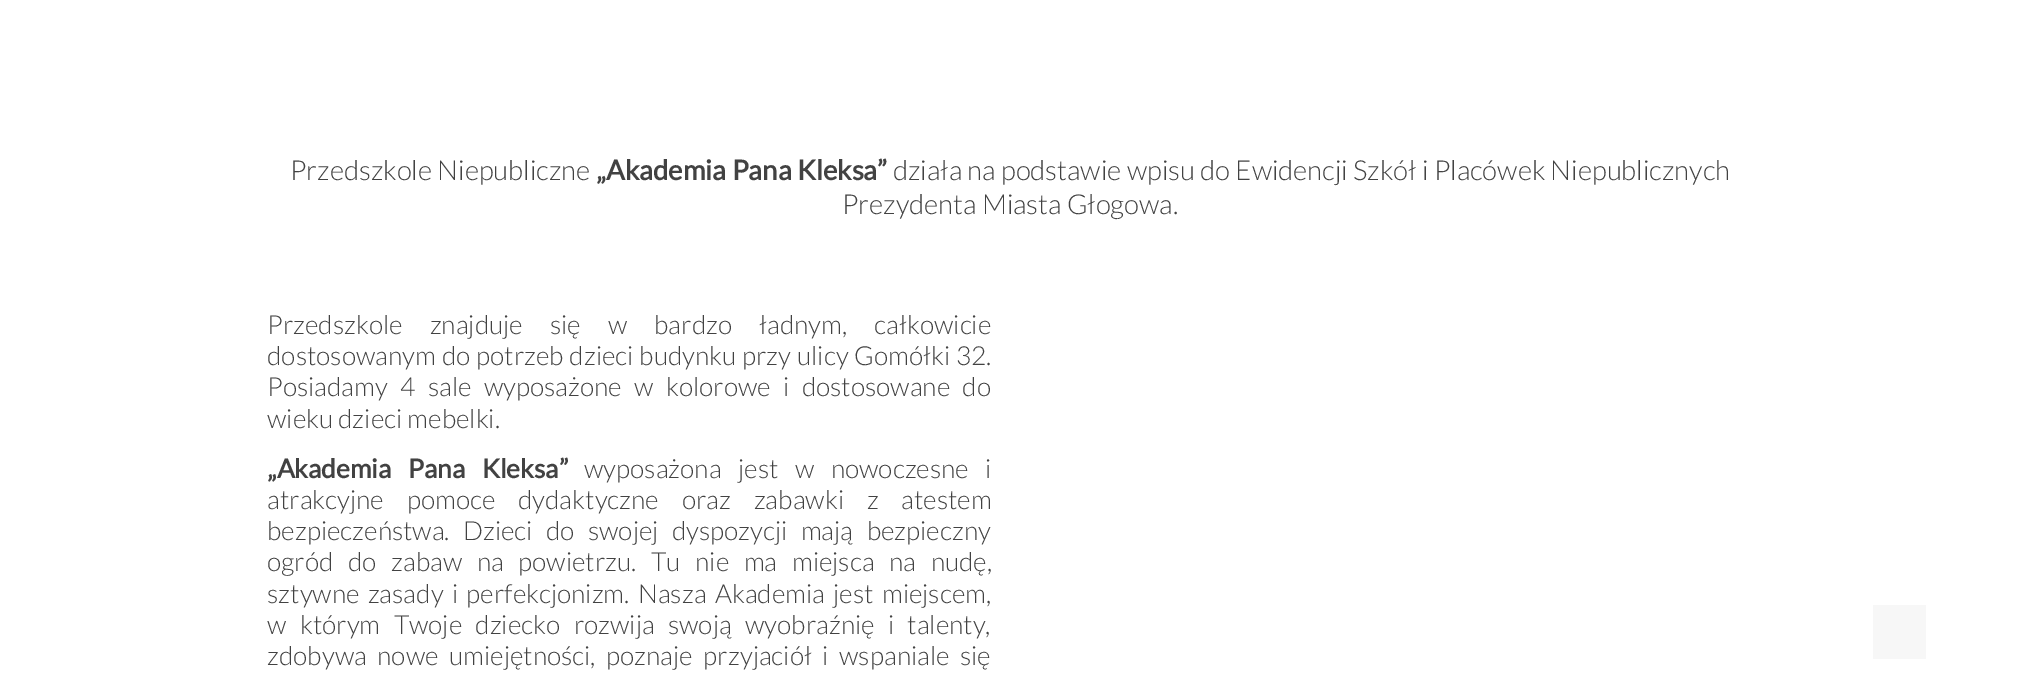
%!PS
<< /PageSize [2019 684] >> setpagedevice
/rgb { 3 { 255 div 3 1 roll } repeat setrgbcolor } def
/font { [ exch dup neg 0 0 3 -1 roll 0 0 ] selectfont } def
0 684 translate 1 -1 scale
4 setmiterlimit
255 255 255 rgb
0 0 2019 684 rectfill
247 247 247 rgb
1873 605 53 54 rectfill
/Lato-Light 27.5 font
66 66 66 rgb
290 180 moveto (Przedszkole Niepubliczne) show
/Lato-Bold 27.5 font
596 180 moveto („Akademia Pana Kleksa”) show
/Lato-Light 27.5 font
893 180 moveto (działa na podstawie wpisu do Ewidencji Szkół i Placówek Niepublicznych) show
842 214 moveto (Prezydenta Miasta Głogowa.) show
/Lato-Light 26.25 font
267 334 moveto 22 0 32 (Przedszkole znajduje się w bardzo ładnym, całkowicie) widthshow
267 365 moveto 0.75 0 32 (dostosowanym do potrzeb dzieci budynku przy ulicy Gomółki 32.) widthshow
267 396 moveto 7.25 0 32 (Posiadamy 4 sale wyposażone w kolorowe i dostosowane do) widthshow
267 428 moveto (wieku dzieci mebelki.) show
/Lato-Bold 26.25 font
267 478 moveto 11.5 0 32 („Akademia Pana Kleksa”) widthshow
/Lato-Light 26.25 font
584 478 moveto 11.5 0 32 (wyposażona jest w nowoczesne i) widthshow
267 509 moveto 17.75 0 32 (atrakcyjne pomoce dydaktyczne oraz zabawki z atestem) widthshow
267 540 moveto 8.25 0 32 (bezpieczeństwa. Dzieci do swojej dyspozycji mają bezpieczny) widthshow
267 571 moveto 9.5 0 32 (ogród do zabaw na powietrzu. Tu nie ma miejsca na nudę,) widthshow
267 603 moveto 3.25 0 32 (sztywne zasady i perfekcjonizm. Nasza Akademia jest miejscem,) widthshow
267 634 moveto 8.25 0 32 (w którym Twoje dziecko rozwija swoją wyobraźnię i talenty,) widthshow
267 665 moveto 5.5 0 32 (zdobywa nowe umiejętności, poznaje przyjaciół i wspaniale się) widthshow
showpage
